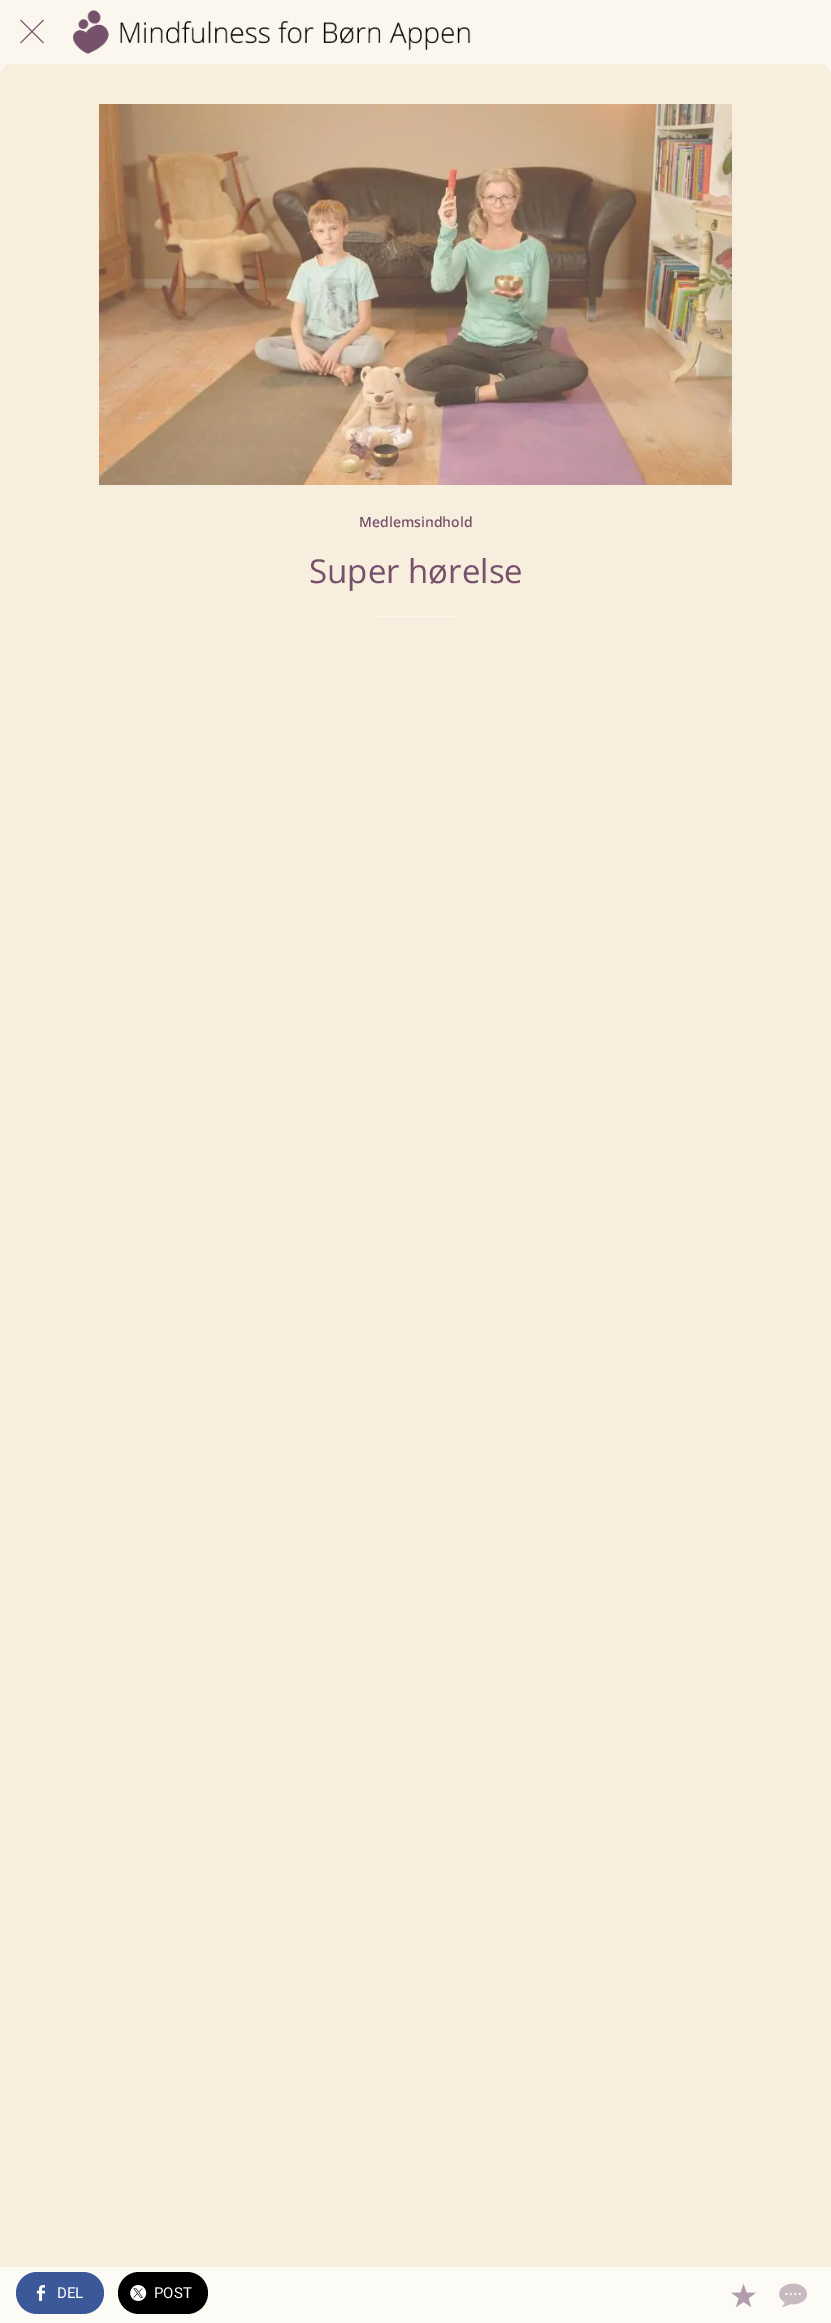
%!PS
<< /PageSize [831 2323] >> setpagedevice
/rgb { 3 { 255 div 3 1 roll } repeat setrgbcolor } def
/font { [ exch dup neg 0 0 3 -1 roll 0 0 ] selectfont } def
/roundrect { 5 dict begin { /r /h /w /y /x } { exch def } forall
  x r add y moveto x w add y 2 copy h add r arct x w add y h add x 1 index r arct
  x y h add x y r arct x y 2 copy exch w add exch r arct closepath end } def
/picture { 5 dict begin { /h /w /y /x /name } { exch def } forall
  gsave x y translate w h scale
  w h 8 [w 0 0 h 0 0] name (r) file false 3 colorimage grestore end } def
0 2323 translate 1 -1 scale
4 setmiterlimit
248 238 222 rgb
0 0 831 2323 rectfill
251 246 238 rgb
0 0 831 64 rectfill
(img/1.rgb) 20 19 24 25 picture
(img/2.rgb) 72 10 399 44 picture
0 64 12 12 rectfill
819 64 12 12 rectfill
248 238 222 rgb
12 64 moveto 819 64 lineto 825.5 64 831 69.5 831 76 curveto 831 657 lineto 0 657 lineto 0 76 lineto 0 69.5 5.5 64 12 64 curveto closepath fill
(img/3.rgb) 99 104 633 381 picture
251 246 238 rgb
375 616 80 1 rectfill
253 251 246 rgb
0 2267 831 56 rectfill
59 89 153 rgb
16 2272 88 42 21 roundrect fill
(img/4.rgb) 36 2285 10 16 picture
0 0 0 rgb
118 2272 90 42 21 roundrect fill
(img/5.rgb) 130 2285 17 16 picture
(img/6.rgb) 731 2283 25 25 picture
(img/7.rgb) 779 2283 28 25 picture
/OpenSans-SemiBold 14 font
118 81 107 rgb
359 527 moveto (Medlemsindhold) show
/OpenSans-Regular 33 font
309 583 moveto (Super hørelse) show
/Roboto-Regular 15 font
255 255 255 rgb
57 2298 moveto (DEL) show
154 2298 moveto (POST) show
showpage
